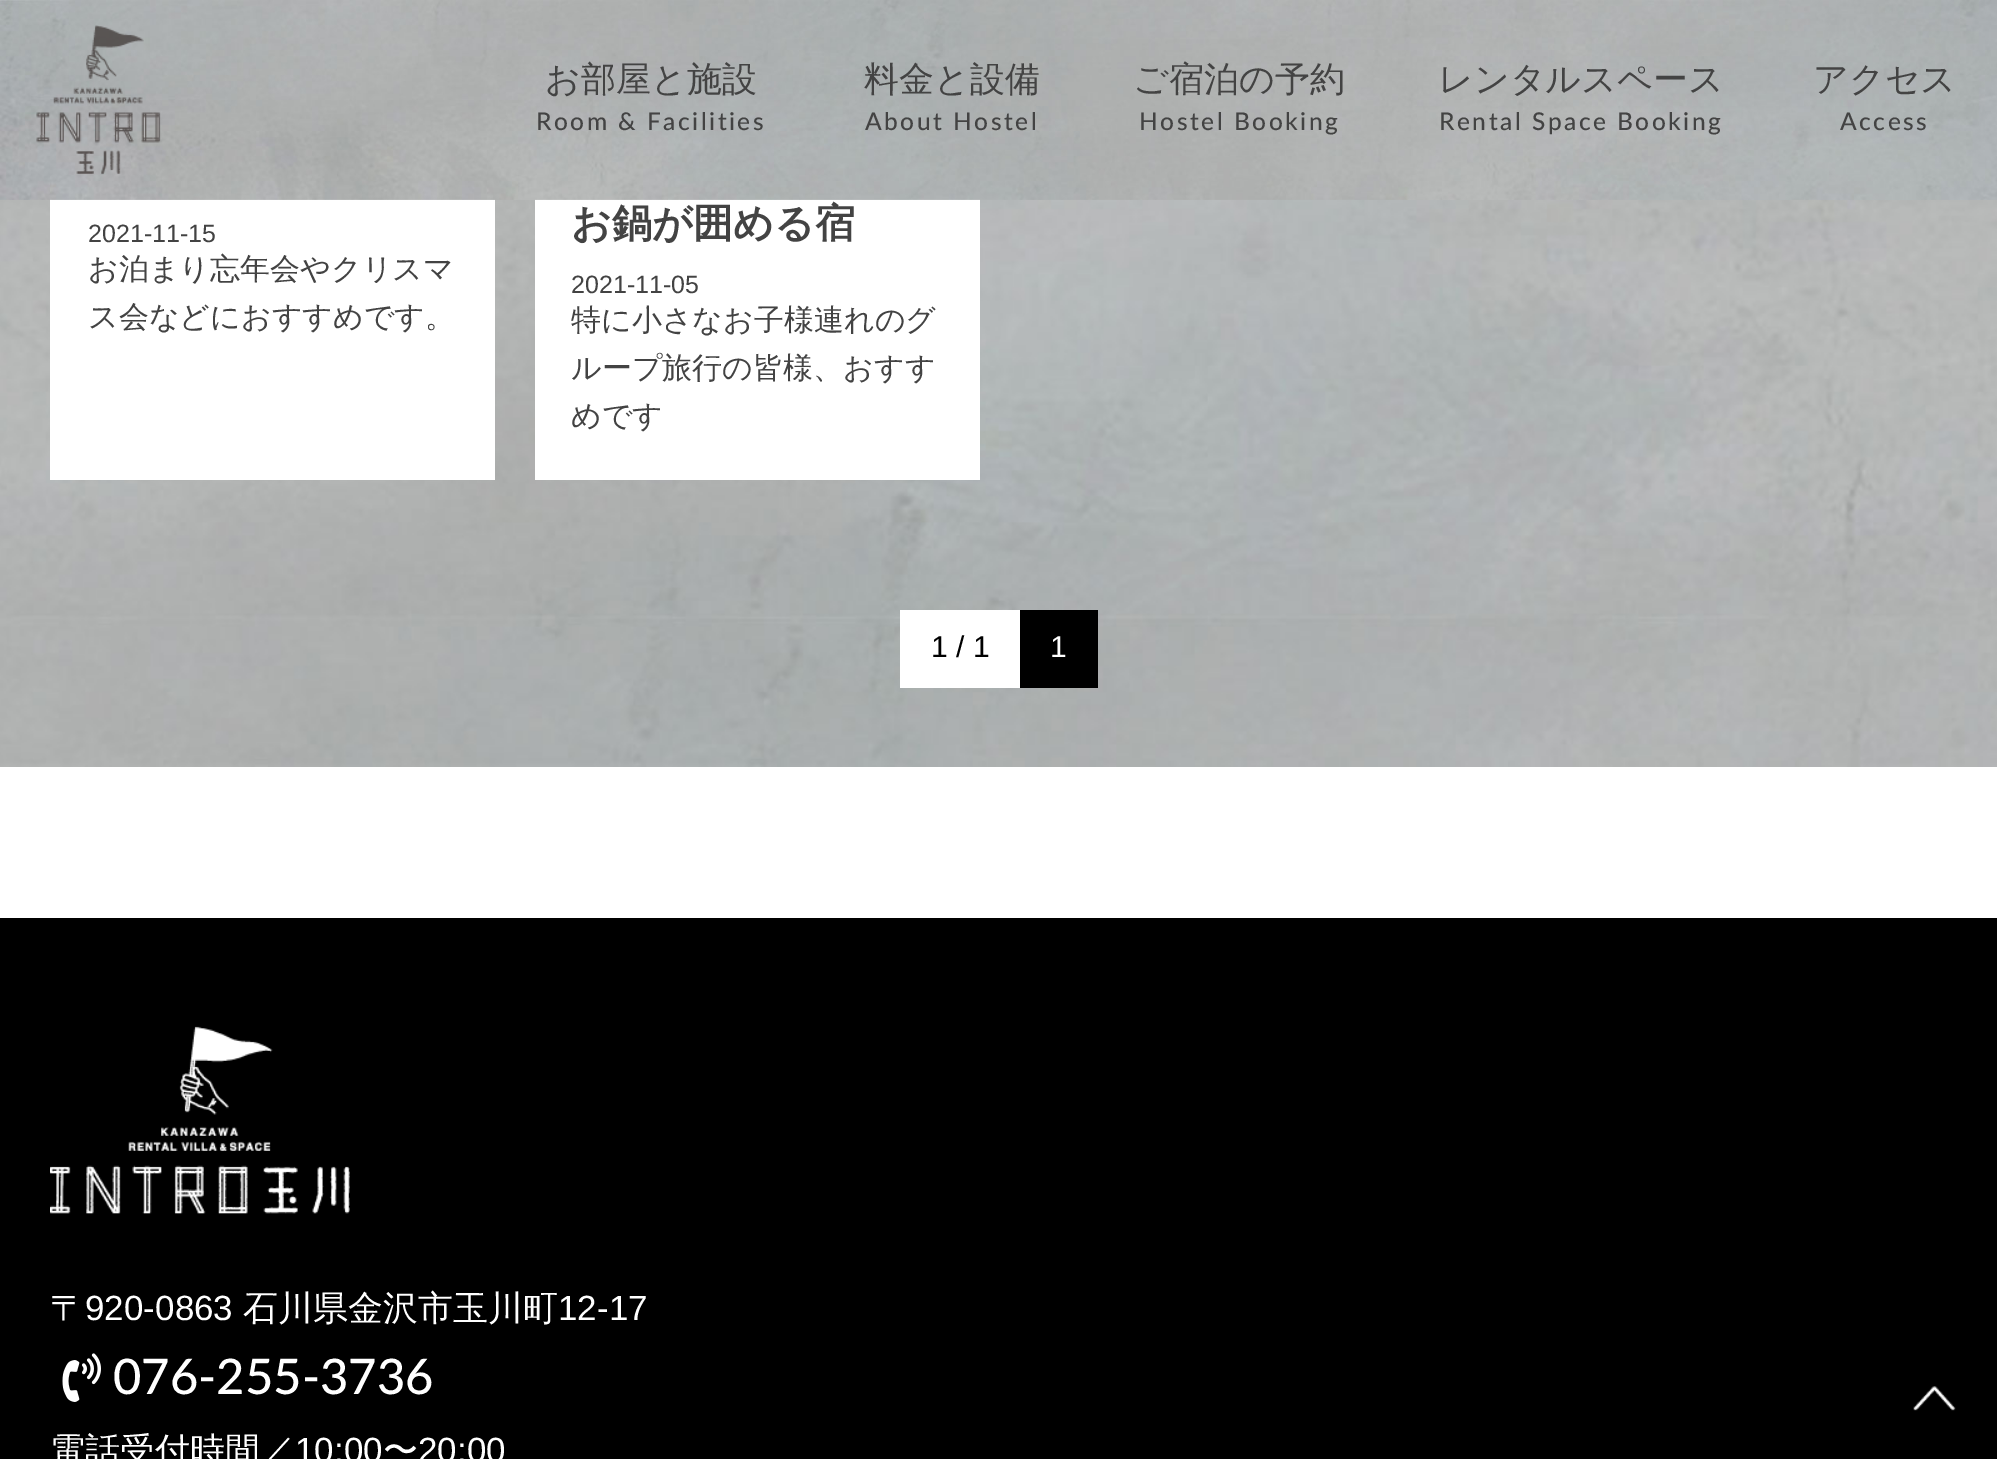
%!PS
<< /PageSize [1997 1459] >> setpagedevice
/rgb { 3 { 255 div 3 1 roll } repeat setrgbcolor } def
/font { [ exch dup neg 0 0 3 -1 roll 0 0 ] selectfont } def
/picture { 5 dict begin { /h /w /y /x /name } { exch def } forall
  gsave x y translate w h scale
  w h 8 [w 0 0 h 0 0] name (r) file false 3 colorimage grestore end } def
0 1459 translate 1 -1 scale
4 setmiterlimit
255 255 255 rgb
0 0 1997 1459 rectfill
(img/3.rgb) 0 199 1997 568 picture
50 199 445 281 rectfill
535 199 445 281 rectfill
(img/1.rgb) 0 0 1997 200 picture
(img/2.rgb) 36 25 125 150 picture
[
  [900 610 120 78 255 255 255]
  [1020 610 78 78 0 0 0]
  [0 918 1997 541 0 0 0]
] { aload pop rgb rectfill } forall
(img/4.rgb) 50 1026 300 188 picture
(img/5.rgb) 62 1353 39 49 picture
(img/6.rgb) 1913 1386 43 25 picture
/WenQuanYiZenHei-Medium 35 font
67 67 67 rgb
545 91 moveto (お部屋と施設) show
/Lato-Medium 24.5 font
536 130 moveto 2.5 0 (Room & Facilities) ashow
/WenQuanYiZenHei-Medium 35 font
864 91 moveto (料金と設備) show
/Lato-Medium 24.5 font
865 130 moveto 2.5 0 (About Hostel) ashow
/WenQuanYiZenHei-Medium 35 font
1133 91 moveto (ご宿泊の予約) show
/Lato-Medium 24.5 font
1139 130 moveto 2.5 0 (Hostel Booking) ashow
/WenQuanYiZenHei-Medium 35 font
1438 91 moveto (レンタルスペース) show
/Lato-Medium 24.5 font
1439 130 moveto 2.5 0 (Rental Space Booking) ashow
/WenQuanYiZenHei-Medium 35 font
1813 91 moveto (アクセス) show
/Lato-Medium 24.5 font
1840 130 moveto 2.5 0 (Access) ashow
/LiberationSans-Regular 25 font
88 242 moveto (2021-11-15) show
/WenQuanYiZenHei-Medium 30 font
88 279 moveto (お泊まり忘年会やクリスマ) show
88 327 moveto (ス会などにおすすめです。) show
/WenQuanYiZenHei-Bold 40 font
571 237 moveto (お鍋が囲める宿) show
/LiberationSans-Regular 25 font
571 293 moveto (2021-11-05) show
/WenQuanYiZenHei-Medium 30 font
[
  [(特に小さなお子様連れのグ) 571 330]
  [(ループ旅行の皆様、おすす) 571 378]
  [(めです) 571 426]
] { aload pop moveto show } forall
/LiberationSans-Regular 30 font
0 0 0 rgb
931 657 moveto (1 / 1) show
255 255 255 rgb
1050 657 moveto (1) show
/WenQuanYiZenHei-Medium 35 font
50 1320 moveto (〒) show
/LiberationSans-Regular 35 font
85 1320 moveto (920-0863) show
/WenQuanYiZenHei-Medium 35 font
243 1320 moveto (石川県金沢市玉川町) show
/LiberationSans-Regular 35 font
558 1320 moveto (12-17) show
/Lato-Medium 49 font
113 1394 moveto (076-255-3736) show
/WenQuanYiZenHei-Medium 35 font
50 1462 moveto (電話受付時間／) show
/LiberationSans-Regular 35 font
295 1462 moveto (10:00) show
/WenQuanYiZenHei-Medium 35 font
383 1462 moveto (〜) show
/LiberationSans-Regular 35 font
418 1462 moveto (20:00) show
showpage
